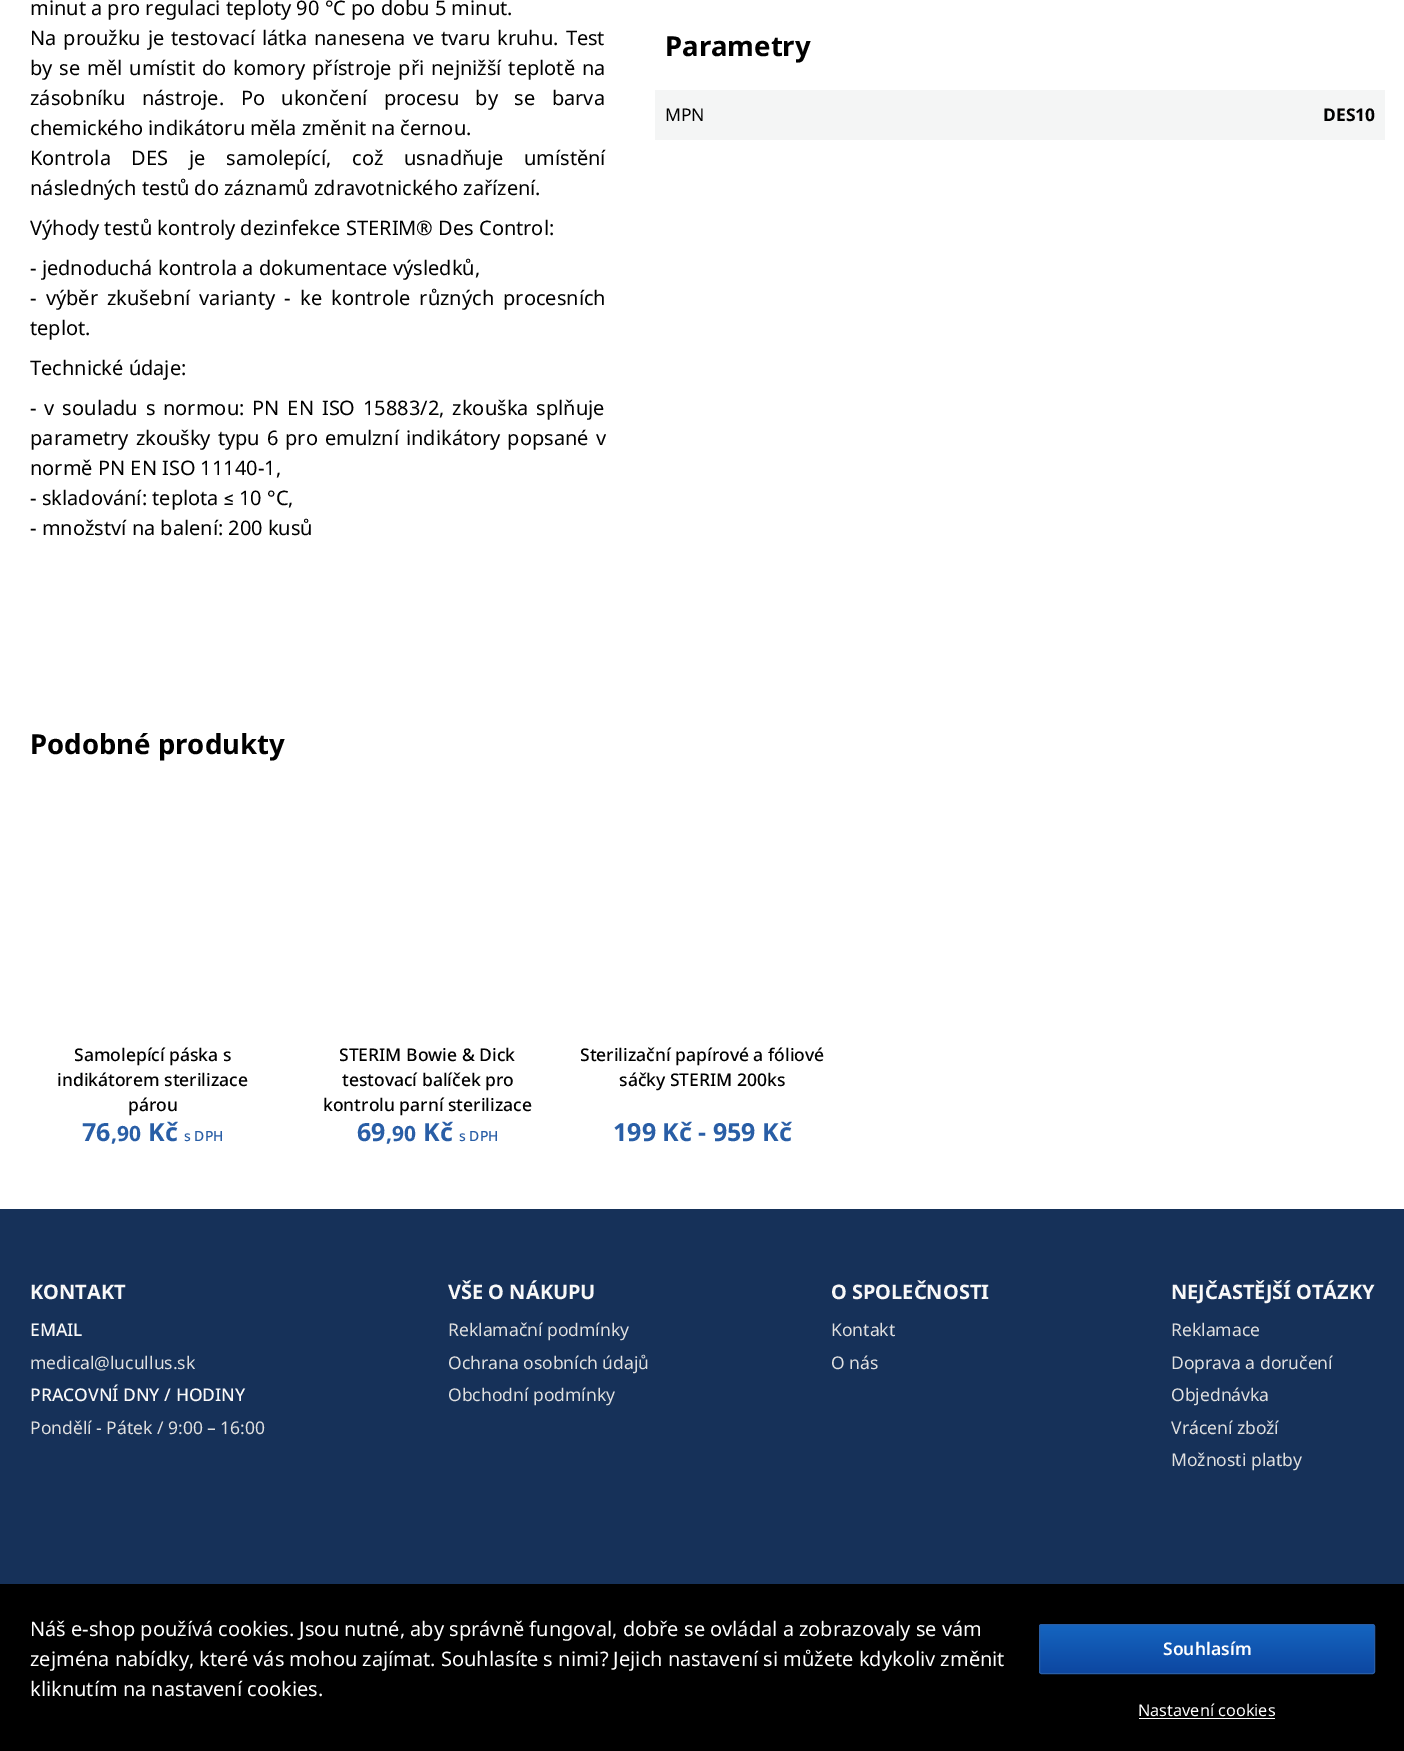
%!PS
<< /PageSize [1404 1751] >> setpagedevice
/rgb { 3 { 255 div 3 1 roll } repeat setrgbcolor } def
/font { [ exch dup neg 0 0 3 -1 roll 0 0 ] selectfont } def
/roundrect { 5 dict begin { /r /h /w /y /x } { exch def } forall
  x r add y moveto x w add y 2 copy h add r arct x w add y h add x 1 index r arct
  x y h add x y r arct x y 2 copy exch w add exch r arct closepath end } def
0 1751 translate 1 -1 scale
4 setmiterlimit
255 255 255 rgb
0 0 1404 1751 rectfill
[
  [655 90 730 50 244 245 245]
  [0 1209 1404 375 22 49 89]
  [0 1584 1404 167 0 0 0]
] { aload pop rgb rectfill } forall
gsave
1039 1624 336 50 2.5 roundrect clip newpath
gsave 1039 1625 moveto 1375 1625 lineto 1375 1673 lineto 1039 1673 lineto closepath clip newpath
<< /ShadingType 2 /ColorSpace /DeviceRGB /Coords [1207 1673 1207 1625] /Extend [true true] /Function << /FunctionType 2 /Domain [0 1] /C0 [0.051 0.278 0.631] /C1 [0.082 0.396 0.753] /N 1 >> >> shfill grestore
grestore
41 94 166 rgb
1039.5 1624.5 335 49 2 roundrect stroke
255 255 255 rgb
1139 1718 136 1 rectfill
/NotoSans-Regular 20 font
0 0 0 rgb
30 15 moveto (minut a pro regulaci teploty 90 °C po dobu 5 minut.) show
30 45 moveto 1.75 0 32 (Na proužku je testovací látka nanesena ve tvaru kruhu. Test) widthshow
30 75 moveto 1.75 0 32 (by se měl umístit do komory přístroje při nejnižší teplotě na) widthshow
30 105 moveto 11.25 0 32 (zásobníku nástroje. Po ukončení procesu by se barva) widthshow
30 135 moveto (chemického indikátoru měla změnit na černou.) show
30 165 moveto 15.5 0 32 (Kontrola DES je samolepící, což usnadňuje umístění) widthshow
[
  [(následných testů do záznamů zdravotnického zařízení.) 30 195]
  [(Výhody testů kontroly dezinfekce STERIM® Des Control:) 30 235]
  [(- jednoduchá kontrola a dokumentace výsledků,) 30 275]
] { aload pop moveto show } forall
30 305 moveto 4 0 32 (- výběr zkušební varianty - ke kontrole různých procesních) widthshow
30 335 moveto (teplot.) show
30 375 moveto (Technické údaje:) show
30 415 moveto 2.75 0 32 (- v souladu s normou: PN EN ISO 15883/2, zkouška splňuje) widthshow
30 445 moveto 1.75 0 32 (parametry zkoušky typu 6 pro emulzní indikátory popsané v) widthshow
30 475 moveto (normě PN EN ISO 11140-1,) show
30 505 moveto (- skladování: teplota) show
/Roboto-Regular 20 font
224 505 moveto (≤) show
/NotoSans-Regular 20 font
239 505 moveto (10 °C,) show
30 535 moveto (- množství na balení: 200 kusů) show
/NotoSans-Bold 27.5 font
665 56 moveto (Parametry) show
/NotoSans-Regular 17.5 font
665 121 moveto (MPN) show
/NotoSans-Bold 17.5 font
1323 121 moveto (DES10) show
/NotoSans-Bold 27.5 font
30 754 moveto (Podobné produkty) show
/NotoSans-Medium 17.5 font
[
  [(Samolepící páska s) 74 1061]
  [(indikátorem sterilizace) 57 1086]
  [(párou) 128 1111]
] { aload pop moveto show } forall
/NotoSans-Bold 25 font
41 94 166 rgb
82 1141 moveto (76) show
/NotoSans-Bold 21 font
111 1141 moveto (,90) show
/NotoSans-Bold 25 font
148 1141 moveto (Kč) show
/NotoSans-Medium 14 font
184 1141 moveto (s DPH) show
/NotoSans-Medium 17.5 font
0 0 0 rgb
[
  [(STERIM Bowie & Dick) 339 1061]
  [(testovací balíček pro) 342 1086]
  [(kontrolu parní sterilizace) 323 1111]
] { aload pop moveto show } forall
/NotoSans-Bold 25 font
41 94 166 rgb
357 1141 moveto (69) show
/NotoSans-Bold 21 font
386 1141 moveto (,90) show
/NotoSans-Bold 25 font
423 1141 moveto (Kč) show
/NotoSans-Medium 14 font
459 1141 moveto (s DPH) show
/NotoSans-Medium 17.5 font
0 0 0 rgb
580 1061 moveto (Sterilizační papírové a fóliové) show
619 1086 moveto (sáčky STERIM 200ks) show
/NotoSans-Bold 25 font
41 94 166 rgb
613 1141 moveto (199 Kč - 959 Kč) show
/NotoSans-Bold 20 font
248 248 248 rgb
30 1299 moveto (KONTAKT) show
/NotoSans-Medium 17.5 font
30 1336 moveto (EMAIL) show
/NotoSans-Regular 17.5 font
224 224 224 rgb
30 1369 moveto (medical@lucullus.sk) show
/NotoSans-Medium 17.5 font
248 248 248 rgb
30 1401 moveto (PRACOVNÍ DNY / HODINY) show
/NotoSans-Regular 17.5 font
224 224 224 rgb
30 1434 moveto (Pondělí - Pátek / 9:00 – 16:00) show
/NotoSans-Bold 20 font
248 248 248 rgb
448 1299 moveto (VŠE O NÁKUPU) show
/NotoSans-Regular 17.5 font
224 224 224 rgb
[
  [(Reklamační podmínky) 448 1336]
  [(Ochrana osobních údajů) 448 1369]
  [(Obchodní podmínky) 448 1401]
] { aload pop moveto show } forall
/NotoSans-Bold 20 font
248 248 248 rgb
831 1299 moveto (O SPOLEČNOSTI) show
/NotoSans-Regular 17.5 font
224 224 224 rgb
831 1336 moveto (Kontakt) show
831 1369 moveto (O nás) show
/NotoSans-Bold 20 font
248 248 248 rgb
1171 1299 moveto (NEJČASTĚJŠÍ OTÁZKY) show
/NotoSans-Regular 17.5 font
224 224 224 rgb
[
  [(Reklamace) 1171 1336]
  [(Doprava a doručení) 1171 1369]
  [(Objednávka) 1171 1401]
  [(Vrácení zboží) 1171 1434]
  [(Možnosti platby) 1171 1466]
] { aload pop moveto show } forall
/NotoSans-Regular 20 font
255 255 255 rgb
[
  [(Náš e-shop používá cookies. Jsou nutné, aby správně fungoval, dobře se ovládal a zobrazovaly se vám) 30 1636]
  [(zejména nabídky, které vás mohou zajímat. Souhlasíte s nimi? Jejich nastavení si můžete kdykoliv změnit) 30 1666]
  [(kliknutím na nastavení cookies.) 30 1696]
] { aload pop moveto show } forall
/NotoSans-SemiBold 17.5 font
1163 1655 moveto (Souhlasím) show
/NotoSans-Regular 16.25 font
1138 1716 moveto (Nastavení cookies) show
showpage
